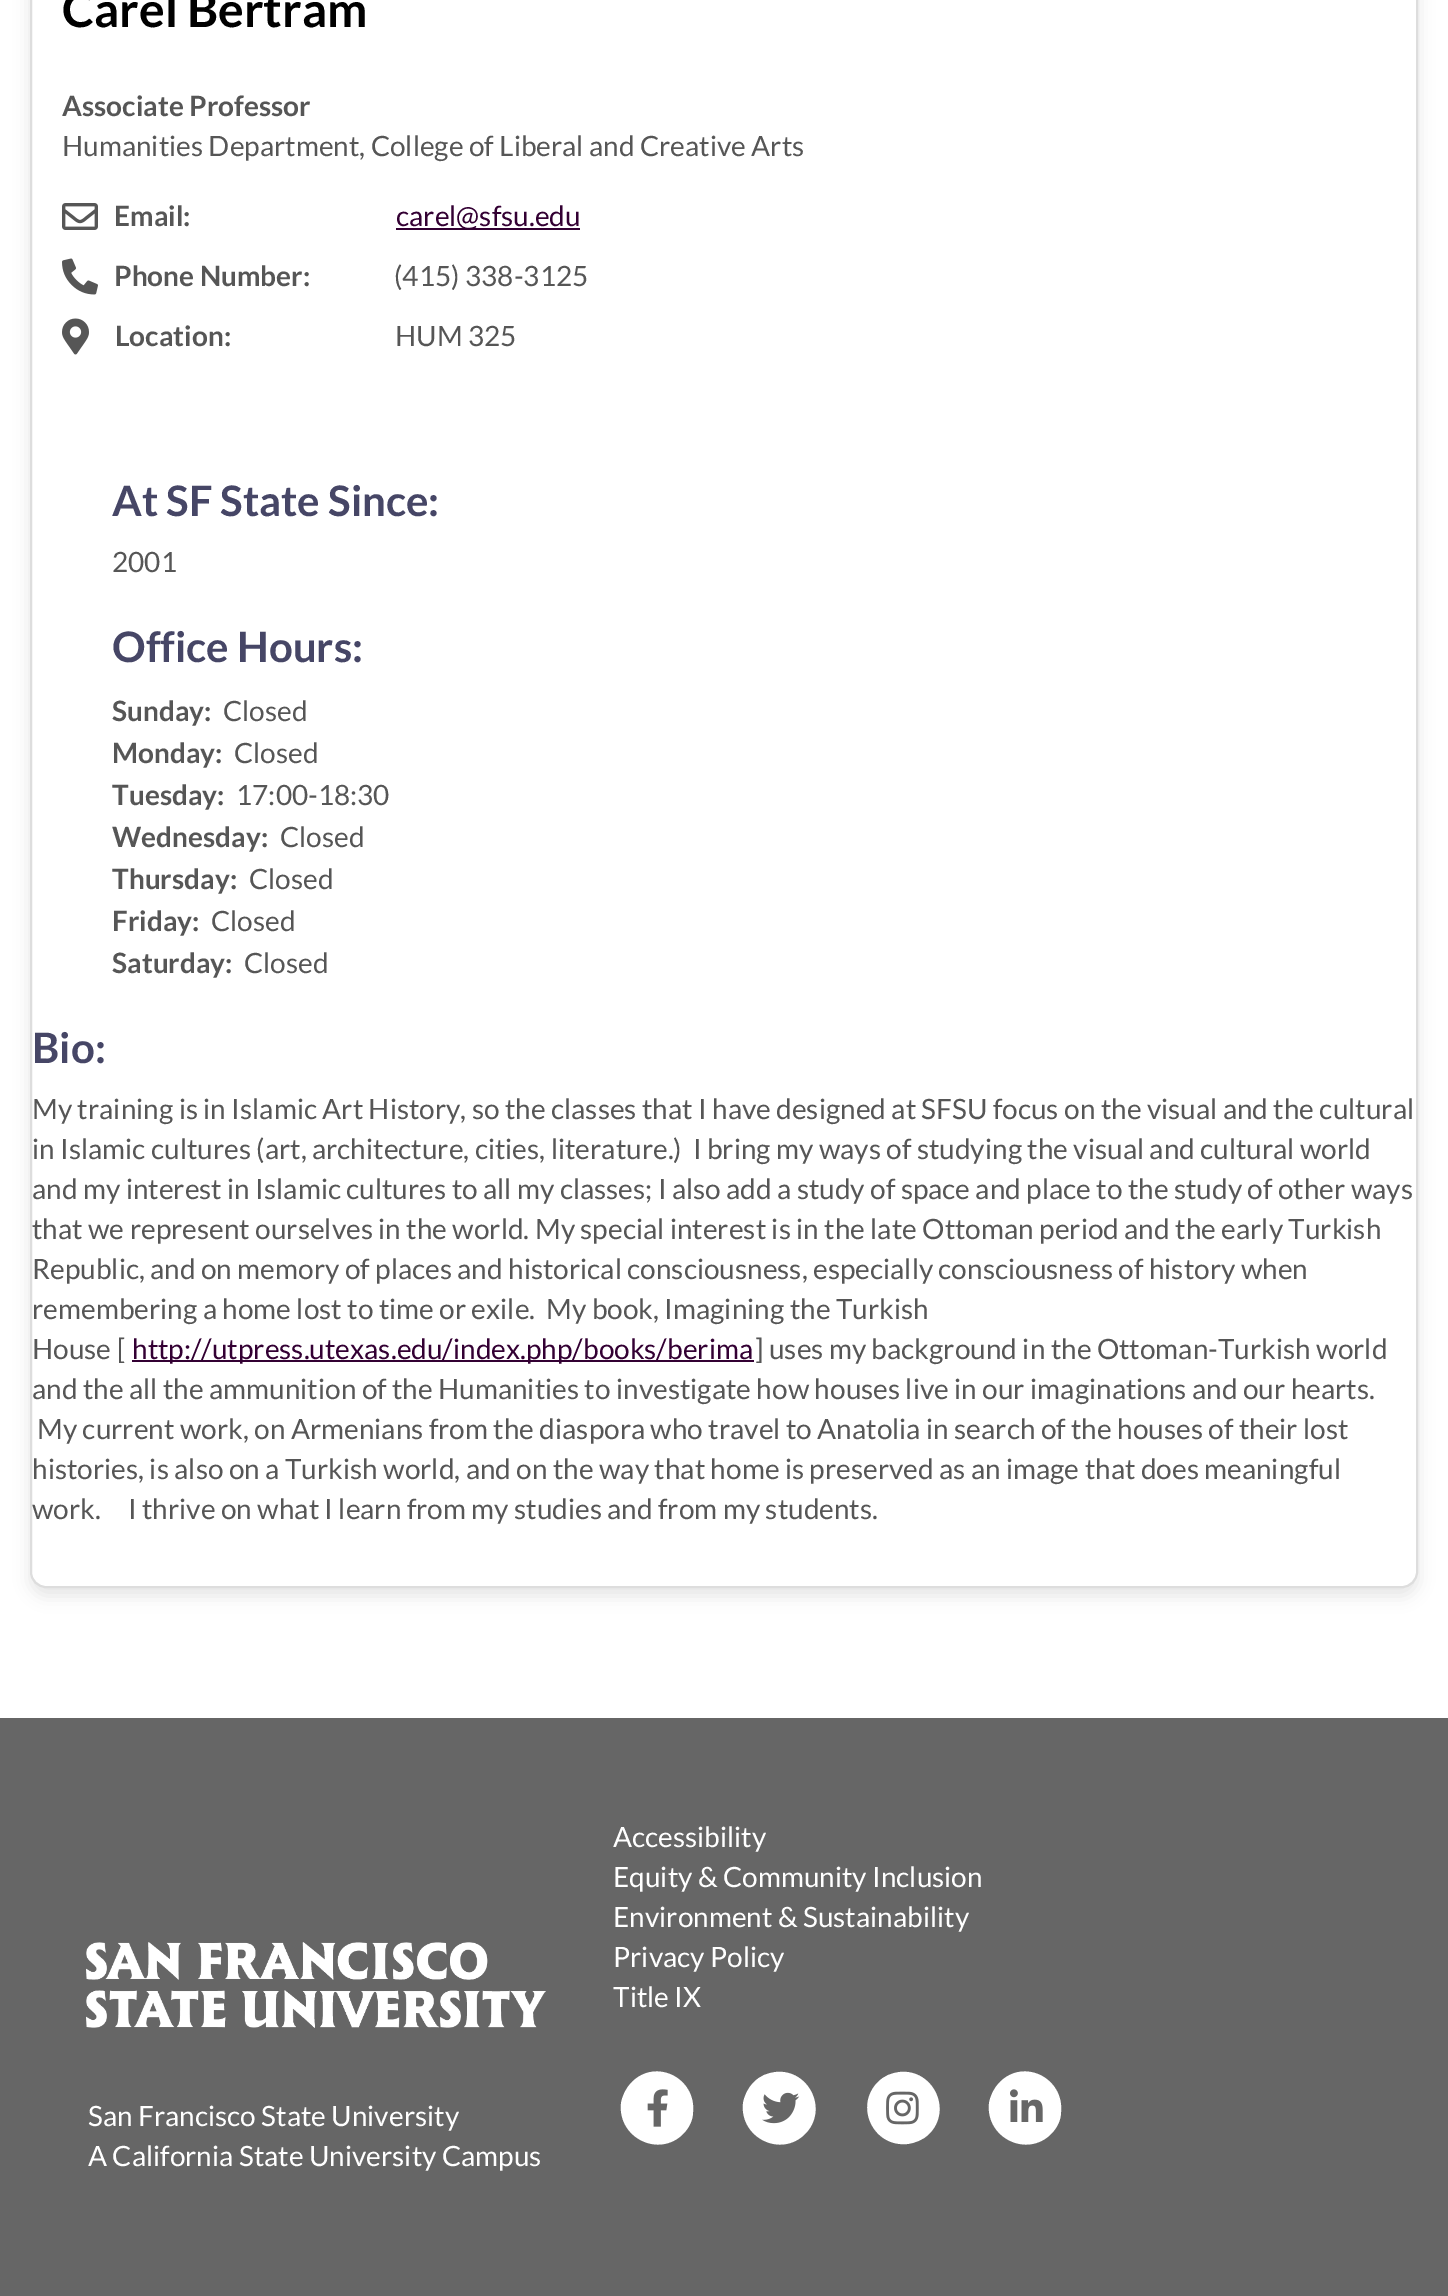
%!PS
<< /PageSize [1448 2296] /PageUsesTransparency true >> setpagedevice
/rgb { 3 { 255 div 3 1 roll } repeat setrgbcolor } def
/font { [ exch dup neg 0 0 3 -1 roll 0 0 ] selectfont } def
/alpha { dup .setfillconstantalpha .setstrokeconstantalpha } def
/roundrect { 5 dict begin { /r /h /w /y /x } { exch def } forall
  x r add y moveto x w add y 2 copy h add r arct x w add y h add x 1 index r arct
  x y h add x y r arct x y 2 copy exch w add exch r arct closepath end } def
/shadow { 12 dict begin { /a /b /q /h /w /y /x } { exch def } forall gsave /was 0 def
  9 -2 -9 { dup b mul 4 div /e exch def 1 sub .425 mul 2.718 exch exp 1 add a .99 .min exch div /now exch def
    1 1 now sub 1 was sub div sub alpha /was now def
    w h .min e 2 mul add 0 gt { x e sub y e sub w e 2 mul add h e 2 mul add
      q e add b .6 mul add w h .min 2 div e add .min 0 .max roundrect fill } if } for grestore end } def
/picture { 5 dict begin { /h /w /y /x /name } { exch def } forall
  gsave x y translate w h scale
  w h 8 [w 0 0 h 0 0] name (r) file false 3 colorimage grestore end } def
0 .pushpdf14devicefilter
0 2296 translate 1 -1 scale
4 setmiterlimit
255 255 255 rgb
0 0 1448 2296 rectfill
0 0 0 rgb
30 -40 1388 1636 16 8 0.1 shadow
255 255 255 rgb
31 -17 1386 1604 15 roundrect gsave fill grestore
221 221 221 rgb
2 setlinewidth
stroke
(img/1.rgb) 62 203 36 27 picture
51 0 51 rgb
396 228 184 2 rectfill
(img/2.rgb) 62 258 36 37 picture
(img/3.rgb) 62 318 27 37 picture
132 1360 622 2 rectfill
102 102 102 rgb
0 1718 1448 578 rectfill
(img/4.rgb) 86 1942 460 86 picture
255 255 255 rgb
632 2082 moveto 656 2058 696 2078 693 2112 curveto 693 2120 689 2128 683 2134 curveto 659 2158 618 2138 621 2104 curveto 622 2096 626 2088 632 2082 curveto closepath fill
(img/5.rgb) 647 2089 21 38 picture
754 2082 moveto 760 2076 767 2073 776 2072 curveto 809 2069 829 2110 805 2134 curveto 781 2158 740 2138 743 2104 curveto 744 2096 748 2088 754 2082 curveto closepath fill
(img/6.rgb) 762 2092 38 32 picture
878 2082 moveto 884 2076 891 2073 900 2072 curveto 933 2069 953 2110 929 2134 curveto 923 2140 915 2143 907 2144 curveto 873 2147 854 2106 878 2082 curveto closepath fill
(img/7.rgb) 886 2091 33 34 picture
1000 2082 moveto 1024 2058 1064 2078 1061 2112 curveto 1061 2120 1057 2128 1051 2134 curveto 1027 2158 986 2138 989 2104 curveto 990 2096 994 2088 1000 2082 curveto closepath fill
(img/8.rgb) 1010 2089 33 33 picture
/Lato-Bold 48 font
0 0 0 rgb
62 27 moveto (Carel Bertram) show
/Lato-Bold 28 font
86 86 86 rgb
62 116 moveto (Associate Professor) show
/Lato-Regular 28 font
62 156 moveto (Humanities Department, College of Liberal and Creative Arts) show
/Lato-Bold 28 font
114 226 moveto (Email:) show
/Lato-Regular 28 font
51 0 51 rgb
396 226 moveto (carel@sfsu.edu) show
/Lato-Bold 28 font
86 86 86 rgb
114 286 moveto (Phone Number:) show
/Lato-Regular 28 font
394 286 moveto (\(415\) 338-3125) show
/Lato-Bold 28 font
115 346 moveto (Location:) show
/Lato-Regular 28 font
395 346 moveto (HUM 325) show
/Lato-Bold 42 font
70 70 102 rgb
112 516 moveto (At SF State Since:) show
/Lato-Regular 28 font
86 86 86 rgb
112 572 moveto (2001) show
/Lato-Bold 42 font
70 70 102 rgb
112 662 moveto (Office Hours:) show
/Lato-Bold 28 font
86 86 86 rgb
112 721 moveto (Sunday:) show
/Lato-Regular 28 font
223 721 moveto (Closed) show
/Lato-Bold 28 font
112 763 moveto (Monday:) show
/Lato-Regular 28 font
234 763 moveto (Closed) show
/Lato-Bold 28 font
112 805 moveto (Tuesday:) show
/Lato-Regular 28 font
236 805 moveto (17:00-18:30) show
/Lato-Bold 28 font
112 847 moveto (Wednesday:) show
/Lato-Regular 28 font
280 847 moveto (Closed) show
/Lato-Bold 28 font
112 889 moveto (Thursday:) show
/Lato-Regular 28 font
249 889 moveto (Closed) show
/Lato-Bold 28 font
112 931 moveto (Friday:) show
/Lato-Regular 28 font
211 931 moveto (Closed) show
/Lato-Bold 28 font
112 973 moveto (Saturday:) show
/Lato-Regular 28 font
244 973 moveto (Closed) show
/Lato-Bold 42 font
70 70 102 rgb
32 1063 moveto (Bio:) show
/Lato-Regular 28 font
86 86 86 rgb
[
  [(My training is in Islamic Art History, so the classes that I have designed at SFSU focus on the visual and the cultural) 32 1119]
  [(in Islamic cultures \(art, architecture, cities, literature.\)  I bring my ways of studying the visual and cultural world) 32 1159]
  [(and my interest in Islamic cultures to all my classes; I also add a study of space and place to the study of other ways) 32 1199]
  [(that we represent ourselves in the world. My special interest is in the late Ottoman period and the early Turkish) 32 1239]
  [(Republic, and on memory of places and historical consciousness, especially consciousness of history when) 32 1279]
  [(remembering a home lost to time or exile.  My book, Imagining the Turkish) 32 1319]
  [(House [) 32 1359]
] { aload pop moveto show } forall
51 0 51 rgb
132 1359 moveto (http://utpress.utexas.edu/index.php/books/berima) show
86 86 86 rgb
[
  [(] uses my background in the Ottoman-Turkish world) 755 1359]
  [(and the all the ammunition of the Humanities to investigate how houses live in our imaginations and our hearts.) 32 1399]
  [(My current work, on Armenians from the diaspora who travel to Anatolia in search of the houses of their lost) 37 1439]
  [(histories, is also on a Turkish world, and on the way that home is preserved as an image that does meaningful) 32 1479]
  [(work.     I thrive on what I learn from my studies and from my students.) 32 1519]
] { aload pop moveto show } forall
255 255 255 rgb
[
  [(Accessibility) 613 1847]
  [(Equity & Community Inclusion) 613 1887]
  [(Environment & Sustainability) 613 1927]
  [(Privacy Policy) 613 1967]
  [(Title IX) 613 2007]
  [(San Francisco State University) 88 2126]
  [(A California State University Campus) 88 2166]
] { aload pop moveto show } forall
.poppdf14devicefilter showpage
